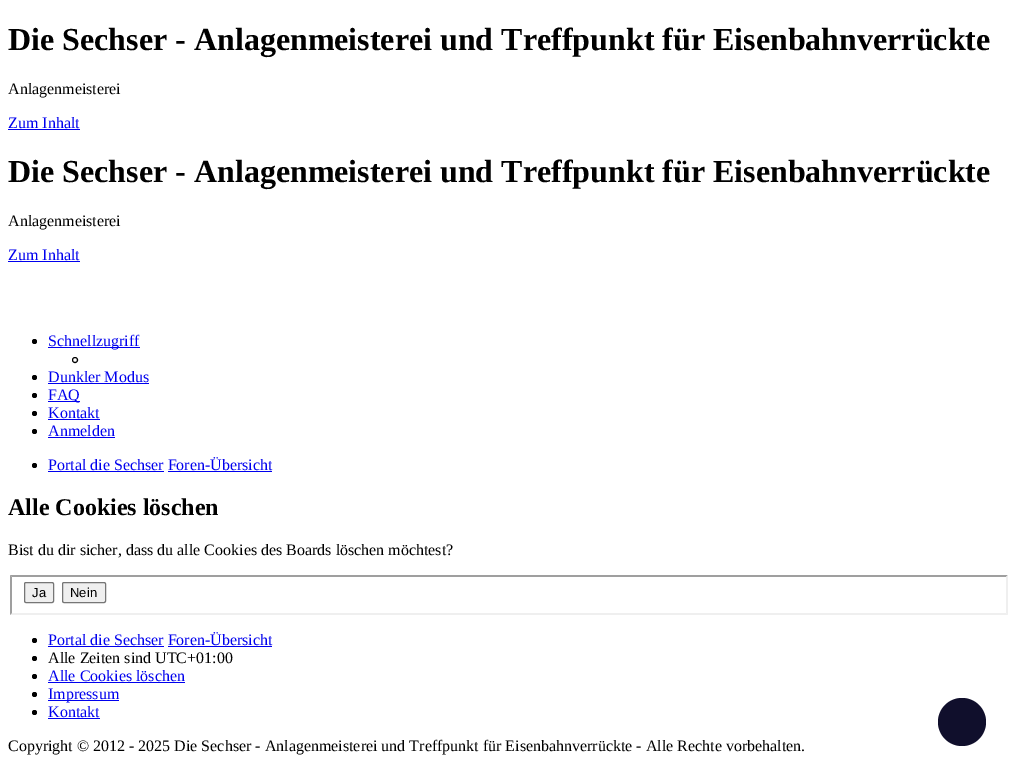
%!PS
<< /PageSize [1018 778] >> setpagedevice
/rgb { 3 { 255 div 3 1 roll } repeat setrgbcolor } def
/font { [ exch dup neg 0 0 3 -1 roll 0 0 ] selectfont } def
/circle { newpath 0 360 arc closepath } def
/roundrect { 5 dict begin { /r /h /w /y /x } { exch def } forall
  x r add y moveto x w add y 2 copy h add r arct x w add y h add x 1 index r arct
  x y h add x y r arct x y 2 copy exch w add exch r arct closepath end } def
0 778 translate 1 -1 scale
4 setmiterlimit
255 255 255 rgb
0 0 1018 778 rectfill
0 0 238 rgb
8 129 72 1 rectfill
8 261 72 1 rectfill
0 0 0 rgb
34.5 341.5 2.5 circle fill
0 0 238 rgb
48 347 92 1 rectfill
0 0 0 rgb
75 360 2.5 circle stroke
34.5 377.5 2.5 circle fill
0 0 238 rgb
48 383 101 1 rectfill
0 0 0 rgb
34.5 395.5 2.5 circle fill
0 0 238 rgb
48 401 32 1 rectfill
0 0 0 rgb
34.5 413.5 2.5 circle fill
0 0 238 rgb
48 419 52 1 rectfill
0 0 0 rgb
34.5 431.5 2.5 circle fill
0 0 238 rgb
48 437 67 1 rectfill
0 0 0 rgb
34.5 465.5 2.5 circle fill
0 0 238 rgb
48 471 116 1 rectfill
168 471 104 1 rectfill
159 159 159 rgb
10 575 moveto 1008 575 lineto 1006 577 lineto 12 577 lineto closepath fill
239 239 239 rgb
1008 575 moveto 1008 615 lineto 1006 613 lineto 1006 577 lineto closepath fill
1008 615 moveto 10 615 lineto 12 613 lineto 1006 613 lineto closepath fill
159 159 159 rgb
10 615 moveto 10 575 lineto 12 577 lineto 12 613 lineto closepath fill
239 239 239 rgb
24.5 582.5 29 20 1.5 roundrect gsave fill grestore
118 118 118 rgb
stroke
239 239 239 rgb
62.5 582.5 43 20 1.5 roundrect gsave fill grestore
118 118 118 rgb
stroke
0 0 0 rgb
34.5 640.5 2.5 circle fill
0 0 238 rgb
48 646 116 1 rectfill
168 646 104 1 rectfill
0 0 0 rgb
34.5 658.5 2.5 circle fill
34.5 676.5 2.5 circle fill
0 0 238 rgb
48 682 137 1 rectfill
0 0 0 rgb
34.5 694.5 2.5 circle fill
0 0 238 rgb
48 700 71 1 rectfill
0 0 0 rgb
34.5 712.5 2.5 circle fill
0 0 238 rgb
48 718 52 1 rectfill
16 15 44 rgb
962 722 24 circle fill
/LiberationSerif-Bold 32 font
0 0 0 rgb
8 50 moveto (Die Sechser - Anlagenmeisterei und Treffpunkt für Eisenbahnverrückte) show
/LiberationSerif-Regular 16 font
8 94 moveto (Anlagenmeisterei) show
0 0 238 rgb
8 128 moveto (Zum Inhalt) show
/LiberationSerif-Bold 32 font
0 0 0 rgb
8 182 moveto (Die Sechser - Anlagenmeisterei und Treffpunkt für Eisenbahnverrückte) show
/LiberationSerif-Regular 16 font
8 226 moveto (Anlagenmeisterei) show
0 0 238 rgb
[
  [(Zum Inhalt) 8 260]
  [(Schnellzugriff) 48 346]
  [(Dunkler Modus) 48 382]
  [(FAQ) 48 400]
  [(Kontakt) 48 418]
  [(Anmelden) 48 436]
  [(Portal die Sechser Foren-Übersicht) 48 470]
] { aload pop moveto show } forall
/LiberationSerif-Bold 24 font
0 0 0 rgb
8 515 moveto (Alle Cookies löschen) show
/LiberationSerif-Regular 16 font
8 555 moveto (Bist du dir sicher, dass du alle Cookies des Boards löschen möchtest?) show
/LiberationSans-Regular 13 font
32 597 moveto (Ja) show
70 597 moveto (Nein) show
/LiberationSerif-Regular 16 font
0 0 238 rgb
48 645 moveto (Portal die Sechser Foren-Übersicht) show
0 0 0 rgb
48 663 moveto (Alle Zeiten sind UTC+01:00) show
0 0 238 rgb
[
  [(Alle Cookies löschen) 48 681]
  [(Impressum) 48 699]
  [(Kontakt) 48 717]
] { aload pop moveto show } forall
0 0 0 rgb
8 751 moveto (Copyright © 2012 - 2025 Die Sechser - Anlagenmeisterei und Treffpunkt für Eisenbahnverrückte - Alle Rechte vorbehalten.) show
showpage
